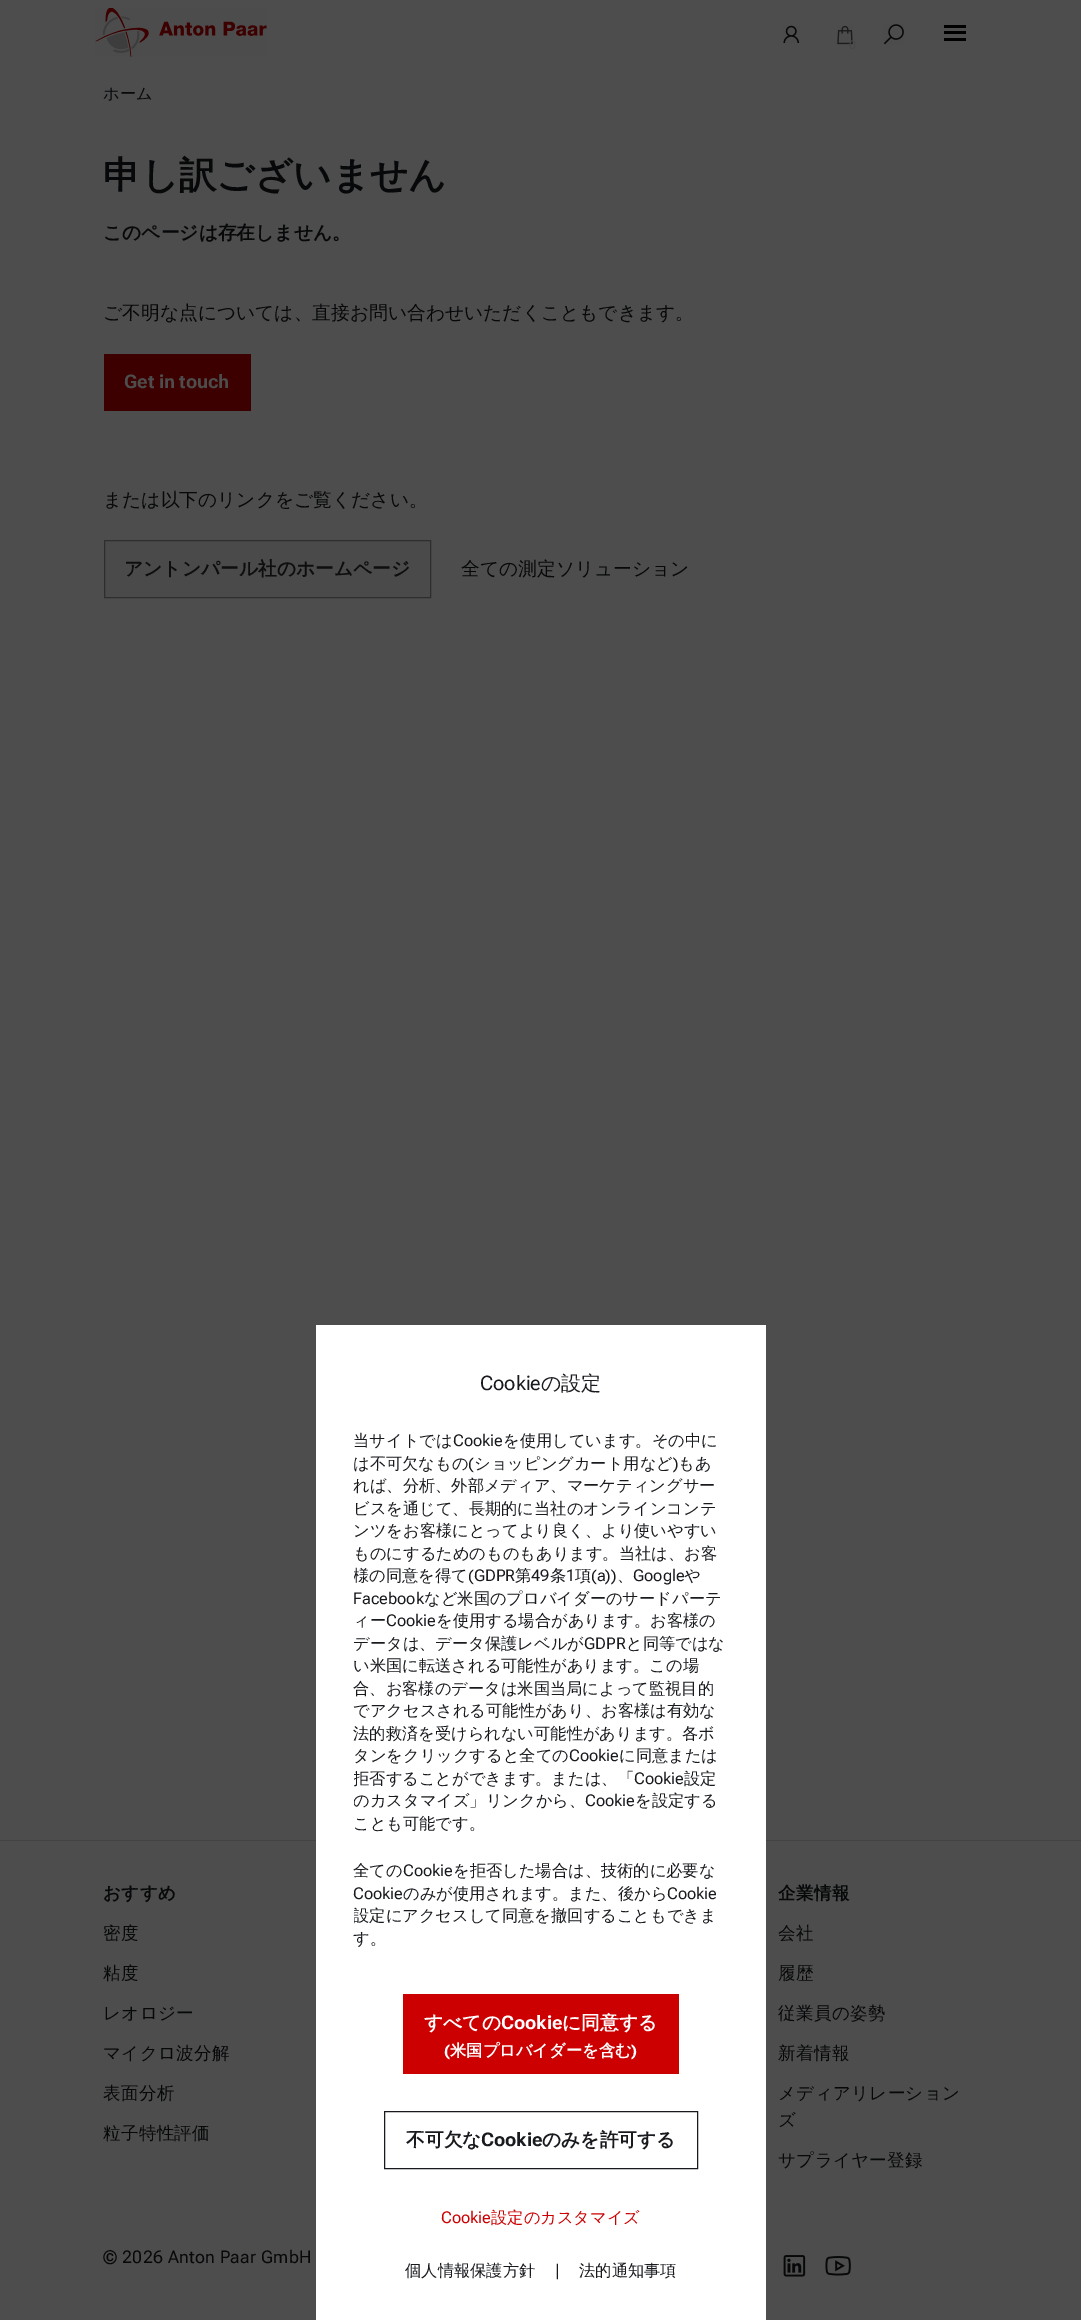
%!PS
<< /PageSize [1081 2320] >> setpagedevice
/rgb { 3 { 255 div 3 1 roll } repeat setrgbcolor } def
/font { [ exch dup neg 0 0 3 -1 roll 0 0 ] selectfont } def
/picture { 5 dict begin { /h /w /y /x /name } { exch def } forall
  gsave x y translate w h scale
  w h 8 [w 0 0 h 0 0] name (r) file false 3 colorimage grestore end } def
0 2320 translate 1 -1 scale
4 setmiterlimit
77 77 77 rgb
0 0 1081 2320 rectfill
(img/1.rgb) 95 8 172 49 picture
(img/2.rgb) 783 25 17 18 picture
[
  [944 25 22 3 0 0 0]
  [944 31 22 3 0 0 0]
  [944 38 22 3 0 0 0]
] { aload pop rgb rectfill } forall
(img/3.rgb) 837 25 16 20 picture
(img/4.rgb) 883 24 21 21 picture
61 0 0 rgb
104 354 147 57 rectfill
74 74 74 rgb
104.5 540.5 moveto 430.5 540.5 lineto 430.5 597.5 lineto 104.5 597.5 lineto closepath gsave fill grestore
46 46 46 rgb
stroke
[
  [0 1840 1081 1 67 67 69]
  [316 1325 450 995 255 255 255]
  [403 1994 276 80 204 0 0]
] { aload pop rgb rectfill } forall
24 26 30 rgb
384.5 2111.5 313 57 rectstroke
(img/5.rgb) 783 2255 23 22 picture
(img/6.rgb) 825 2256 26 20 picture
/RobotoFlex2-Regular 12 font
71 71 71 rgb
849 49 moveto (0) show
/WenQuanYiZenHei-Medium 16.25 font
7 8 9 rgb
103 99 moveto (ホーム) show
/WenQuanYiZenHei-Bold 37.5 font
103 188 moveto (申し訳ございません) show
/WenQuanYiZenHei-Bold 18.75 font
103 239 moveto (このページは存在しません。) show
/WenQuanYiZenHei-Medium 18.75 font
103 319 moveto (ご不明な点については、直接お問い合わせいただくこともできます。) show
/RobotoFlex-Bold 18.75 font
77 77 77 rgb
124 388 moveto (Get in touch) show
/WenQuanYiZenHei-Medium 18.75 font
7 8 9 rgb
103 506 moveto (または以下のリンクをご覧ください。) show
/WenQuanYiZenHei-Bold 18.75 font
14 14 14 rgb
124 575 moveto (アントンパール社のホームページ) show
/WenQuanYiZenHei-Medium 18.75 font
7 8 9 rgb
461 575 moveto (全ての測定ソリューション) show
/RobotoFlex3-Regular 20 font
24 26 30 rgb
480 1390 moveto (Cookie) show
/WenQuanYiZenHei-Medium 20 font
541 1390 moveto (の設定) show
/WenQuanYiZenHei-Medium 16.25 font
353 1446 moveto (当サイトでは) show
/RobotoFlex-Regular 16.25 font
453 1446 moveto (Cookie) show
/WenQuanYiZenHei-Medium 16.25 font
503 1446 moveto (を使用しています。その中に) show
353 1469 moveto (は不可欠なもの) show
/RobotoFlex-Regular 16.25 font
468 1469 moveto (\() show
/WenQuanYiZenHei-Medium 16.25 font
474 1469 moveto (ショッピングカート用など) show
/RobotoFlex-Regular 16.25 font
673 1469 moveto (\)) show
/WenQuanYiZenHei-Medium 16.25 font
[
  [(もあ) 678 1469]
  [(れば、分析、外部メディア、マーケティングサー) 353 1491]
  [(ビスを通じて、長期的に当社のオンラインコンテ) 353 1514]
  [(ンツをお客様にとってより良く、より使いやすい) 353 1536]
  [(ものにするためのものもあります。当社は、お客) 353 1559]
] { aload pop moveto show } forall
gsave
354 1430 375 545 rectclip
353 1581 moveto (様の同意を得て) show
grestore
/RobotoFlex-Regular 16.25 font
468 1581 moveto (\(GDPR) show
/WenQuanYiZenHei-Medium 16.25 font
515 1581 moveto (第) show
/RobotoFlex-Regular 16.25 font
531 1581 moveto (49) show
/WenQuanYiZenHei-Medium 16.25 font
550 1581 moveto (条) show
/RobotoFlex-Regular 16.25 font
566 1581 moveto (1) show
/WenQuanYiZenHei-Medium 16.25 font
575 1581 moveto (項) show
/RobotoFlex-Regular 16.25 font
591 1581 moveto (\(a\)\)) show
/WenQuanYiZenHei-Medium 16.25 font
617 1581 moveto (、) show
/RobotoFlex-Regular 16.25 font
633 1581 moveto (Google) show
/WenQuanYiZenHei-Medium 16.25 font
684 1581 moveto (や) show
/RobotoFlex-Regular 16.25 font
353 1604 moveto (Facebook) show
/WenQuanYiZenHei-Medium 16.25 font
424 1604 moveto (など米国のプロバイダーのサードパーテ) show
353 1626 moveto (ィー) show
/RobotoFlex-Regular 16.25 font
386 1626 moveto (Cookie) show
/WenQuanYiZenHei-Medium 16.25 font
436 1626 moveto (を使用する場合があります。お客様の) show
353 1649 moveto (データは、データ保護レベルが) show
/RobotoFlex-Regular 16.25 font
584 1649 moveto (GDPR) show
/WenQuanYiZenHei-Medium 16.25 font
[
  [(と同等ではな) 626 1649]
  [(い米国に転送される可能性があります。この場) 353 1671]
  [(合、お客様のデータは米国当局によって監視目的) 353 1694]
  [(でアクセスされる可能性があり、お客様は有効な) 353 1716]
  [(法的救済を受けられない可能性があります。各ボ) 353 1739]
  [(タンをクリックすると全ての) 353 1761]
] { aload pop moveto show } forall
/RobotoFlex-Regular 16.25 font
569 1761 moveto (Cookie) show
/WenQuanYiZenHei-Medium 16.25 font
619 1761 moveto (に同意または) show
gsave
354 1430 375 545 rectclip
353 1784 moveto (拒否することができます。または、「) show
grestore
/RobotoFlex-Regular 16.25 font
634 1784 moveto (Cookie) show
/WenQuanYiZenHei-Medium 16.25 font
684 1784 moveto (設定) show
gsave
354 1430 375 545 rectclip
353 1806 moveto (のカスタマイズ」リンクから、) show
grestore
/RobotoFlex-Regular 16.25 font
585 1806 moveto (Cookie) show
/WenQuanYiZenHei-Medium 16.25 font
[
  [(を設定する) 635 1806]
  [(ことも可能です。) 353 1829]
  [(全ての) 353 1876]
] { aload pop moveto show } forall
/RobotoFlex-Regular 16.25 font
403 1876 moveto (Cookie) show
/WenQuanYiZenHei-Medium 16.25 font
453 1876 moveto (を拒否した場合は、技術的に必要な) show
/RobotoFlex-Regular 16.25 font
353 1899 moveto (Cookie) show
/WenQuanYiZenHei-Medium 16.25 font
403 1899 moveto (のみが使用されます。また、後から) show
/RobotoFlex-Regular 16.25 font
667 1899 moveto (Cookie) show
gsave
354 1430 375 545 rectclip
/WenQuanYiZenHei-Medium 16.25 font
353 1921 moveto (設定にアクセスして同意を撤回することもできま) show
grestore
/WenQuanYiZenHei-Medium 16.25 font
353 1944 moveto (す。) show
/WenQuanYiZenHei-Bold 18.75 font
255 255 255 rgb
424 2029 moveto (すべての) show
/RobotoFlex-Bold 18.75 font
501 2029 moveto (Cookie) show
/WenQuanYiZenHei-Bold 18.75 font
562 2029 moveto (に同意する) show
/RobotoFlex-Bold 16.25 font
444 2056 moveto (\() show
/WenQuanYiZenHei-Bold 16.25 font
450 2056 moveto (米国プロバイダーを含む) show
/RobotoFlex-Bold 16.25 font
631 2056 moveto (\)) show
/WenQuanYiZenHei-Bold 18.75 font
24 26 30 rgb
406 2146 moveto (不可欠な) show
/RobotoFlex-Bold 18.75 font
481 2146 moveto (Cookie) show
/WenQuanYiZenHei-Bold 18.75 font
542 2146 moveto (のみを許可する) show
/RobotoFlex-Regular 16.25 font
204 0 0 rgb
441 2223 moveto (Cookie) show
/WenQuanYiZenHei-Medium 16.25 font
491 2223 moveto (設定のカスタマイズ) show
24 26 30 rgb
405 2276 moveto (個人情報保護方針) show
/RobotoFlex-Regular 16.25 font
555 2276 moveto (|) show
/WenQuanYiZenHei-Medium 16.25 font
579 2276 moveto (法的通知事項) show
/WenQuanYiZenHei-Bold 17.5 font
7 8 9 rgb
103 1899 moveto 0.35 0 (おすすめ) ashow
/WenQuanYiZenHei-Medium 17.5 font
103 1939 moveto 0.35 0 (密度) ashow
103 1979 moveto 0.35 0 (粘度) ashow
103 2019 moveto 0.35 0 (レオロジー) ashow
103 2059 moveto 0.35 0 (マイクロ波分解) ashow
103 2099 moveto 0.35 0 (表面分析) ashow
103 2139 moveto 0.35 0 (粒子特性評価) ashow
/WenQuanYiZenHei-Bold 17.5 font
778 1899 moveto 0.35 0 (企業情報) ashow
/WenQuanYiZenHei-Medium 17.5 font
778 1939 moveto 0.35 0 (会社) ashow
778 1979 moveto 0.35 0 (履歴) ashow
778 2019 moveto 0.35 0 (従業員の姿勢) ashow
778 2059 moveto 0.35 0 (新着情報) ashow
778 2099 moveto 0.35 0 (メディアリレーション) ashow
778 2126 moveto 0.35 0 (ズ) ashow
778 2166 moveto 0.35 0 (サプライヤー登録) ashow
/RobotoFlex-Regular 17.5 font
103 2263 moveto 0.35 0 (© 2026 Anton Paar GmbH) ashow
showpage
